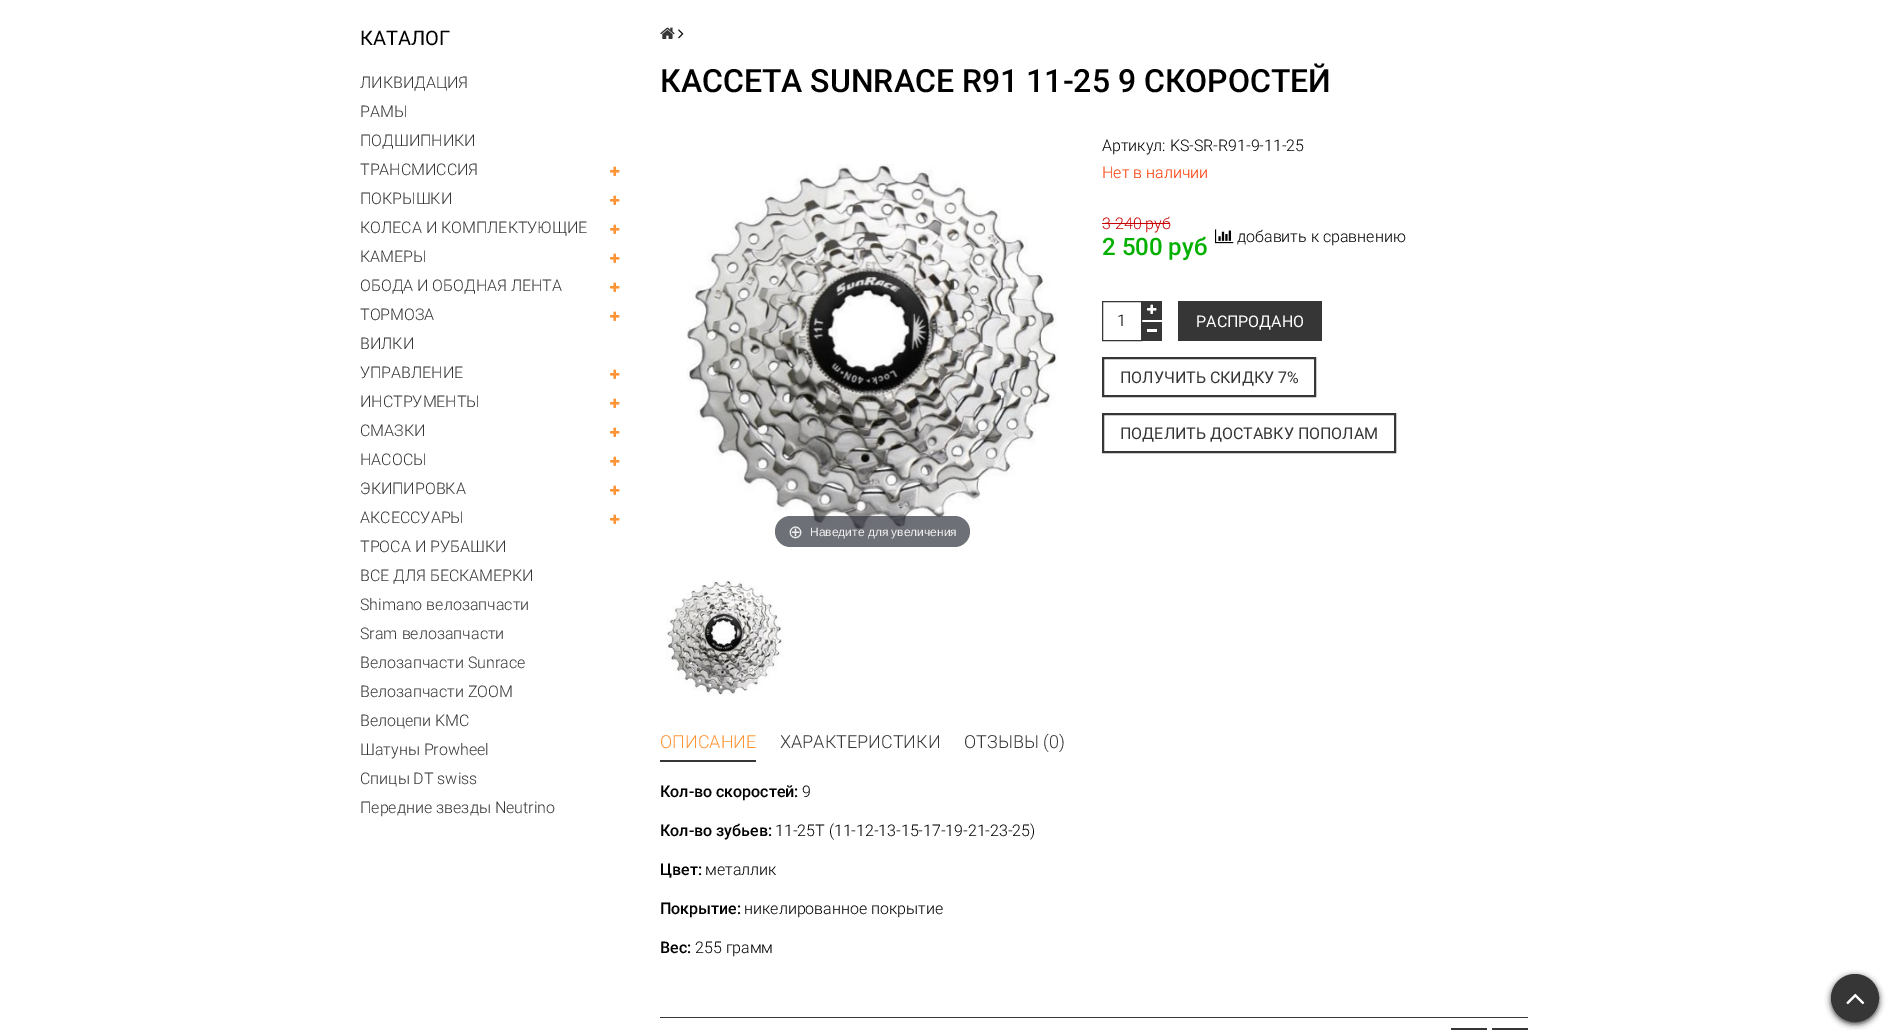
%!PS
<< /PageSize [1887 1030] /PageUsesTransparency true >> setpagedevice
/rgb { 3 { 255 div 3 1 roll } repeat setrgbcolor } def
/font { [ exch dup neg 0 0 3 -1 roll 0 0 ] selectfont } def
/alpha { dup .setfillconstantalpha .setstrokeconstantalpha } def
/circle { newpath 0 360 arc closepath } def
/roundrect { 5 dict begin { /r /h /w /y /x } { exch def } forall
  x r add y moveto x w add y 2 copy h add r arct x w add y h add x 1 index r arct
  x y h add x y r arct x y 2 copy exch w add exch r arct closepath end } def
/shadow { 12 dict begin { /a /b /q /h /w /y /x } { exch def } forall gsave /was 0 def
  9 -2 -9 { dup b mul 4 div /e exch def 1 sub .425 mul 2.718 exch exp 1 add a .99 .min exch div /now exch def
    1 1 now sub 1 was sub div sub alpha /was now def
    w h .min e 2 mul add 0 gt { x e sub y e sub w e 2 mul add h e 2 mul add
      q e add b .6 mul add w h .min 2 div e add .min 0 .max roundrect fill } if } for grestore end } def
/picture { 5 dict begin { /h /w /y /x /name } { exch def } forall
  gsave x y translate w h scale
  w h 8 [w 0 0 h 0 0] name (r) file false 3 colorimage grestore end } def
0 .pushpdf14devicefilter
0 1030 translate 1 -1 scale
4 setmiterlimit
255 255 255 rgb
0 0 1887 1030 rectfill
(img/1.rgb) 610 166 10 10 picture
(img/1.rgb) 610 195 10 10 picture
(img/1.rgb) 610 224 10 10 picture
(img/1.rgb) 610 253 10 10 picture
(img/1.rgb) 610 282 10 10 picture
(img/1.rgb) 610 311 10 10 picture
(img/1.rgb) 610 369 10 10 picture
(img/1.rgb) 610 398 10 10 picture
(img/1.rgb) 610 427 10 10 picture
(img/1.rgb) 610 456 10 10 picture
(img/1.rgb) 610 485 10 10 picture
(img/1.rgb) 610 514 10 10 picture
(img/2.rgb) 660 27 15 12 picture
(img/3.rgb) 678 29 6 10 picture
199 0 0 rgb
1102 223 68 1 rectfill
(img/4.rgb) 1215 229 19 15 picture
54 54 54 rgb
1102.5 301.5 39 39 rectstroke
1142 301 20 19 rectfill
(img/5.rgb) 1147 304 10 10 picture
[
  [1142 322 20 19 54 54 54]
  [1147 329 10 3 255 255 255]
  [1178 301 144 40 54 54 54]
] { aload pop rgb rectfill } forall
2 setlinewidth
1103 358 212 38 rectstroke
1103 414 292 38 rectstroke
(img/6.rgb) 686 164 372 369 picture
0.7 alpha
49 51 61 rgb
775 516 195 31 15.5 roundrect fill
1 alpha
(img/7.rgb) 666 580 118 116 picture
[
  [660 760 96 2 54 54 54]
  [660 1017 868 1 54 54 54]
  [1451 1028 36 2 54 54 54]
  [1492 1028 36 2 54 54 54]
] { aload pop rgb rectfill } forall
51 51 51 rgb
1831 976 48 48 24 3 1 shadow
54 54 54 rgb
1855 998 23 circle gsave fill grestore
stroke
(img/8.rgb) 1846 993 19 12 picture
/Roboto-Regular 20 font
0 0 0 rgb
360 45 moveto (КАТАЛОГ) show
/Roboto-Light 16 font
54 54 54 rgb
[
  [(ЛИКВИДАЦИЯ) 360 88]
  [(РАМЫ) 360 117]
  [(ПОДШИПНИКИ) 360 146]
  [(ТРАНСМИССИЯ) 360 175]
  [(ПОКРЫШКИ) 360 204]
  [(КОЛЕСА И КОМПЛЕКТУЮЩИЕ) 360 233]
  [(КАМЕРЫ) 360 262]
  [(ОБОДА И ОБОДНАЯ ЛЕНТА) 360 291]
  [(ТОРМОЗА) 360 320]
  [(ВИЛКИ) 360 349]
  [(УПРАВЛЕНИЕ) 360 378]
  [(ИНСТРУМЕНТЫ) 360 407]
  [(СМАЗКИ) 360 436]
  [(НАСОСЫ) 360 465]
  [(ЭКИПИРОВКА) 360 494]
  [(АКСЕССУАРЫ) 360 523]
  [(ТРОСА И РУБАШКИ) 360 552]
  [(ВСЕ ДЛЯ БЕСКАМЕРКИ) 360 581]
  [(Shimano велозапчасти) 360 610]
  [(Sram велозапчасти) 360 639]
  [(Велозапчасти Sunrace) 360 668]
  [(Велозапчасти ZOOM) 360 697]
  [(Велоцепи KMC) 360 726]
  [(Шатуны Prowheel) 360 755]
  [(Спицы DT swiss) 360 784]
  [(Передние звезды Neutrino) 360 813]
] { aload pop moveto show } forall
/Roboto-Medium 32 font
0 0 0 rgb
660 92 moveto (КАССЕТА SUNRACE R91 11-25 9 СКОРОСТЕЙ) show
/Roboto-Light 16 font
1102 151 moveto (Артикул: KS-SR-R91-9-11-25) show
249 55 0 rgb
1102 178 moveto (Нет в наличии) show
199 0 0 rgb
1102 229 moveto (3 240 руб) show
/Roboto-Medium 24 font
3 176 0 rgb
1102 255 moveto (2 500 руб) show
/Roboto-Light 16 font
0 0 0 rgb
1237 242 moveto (добавить к сравнению) show
1117 326 moveto (1) show
/Roboto-Regular 16 font
255 255 255 rgb
1196 327 moveto (РАСПРОДАНО) show
54 54 54 rgb
1120 383 moveto (ПОЛУЧИТЬ СКИДКУ 7%) show
1120 439 moveto (ПОДЕЛИТЬ ДОСТАВКУ ПОПОЛАМ) show
/DejaVuSans-Regular 18 font
238 238 238 rgb
788 538 moveto (⊕) show
/LiberationSans-Regular 12 font
810 536 moveto (Наведите для увеличения) show
/Roboto-Light 18 font
255 148 54 rgb
660 748 moveto (ОПИСАНИЕ) show
54 54 54 rgb
780 748 moveto (ХАРАКТЕРИСТИКИ) show
964 748 moveto (ОТЗЫВЫ \(0\)) show
/Roboto-Medium 16 font
0 0 0 rgb
660 797 moveto (Кол-во скоростей:) show
/Roboto-Light 16 font
802 797 moveto (9) show
/Roboto-Medium 16 font
660 836 moveto (Кол-во зубьев:) show
/Roboto-Light 16 font
775 836 moveto (11-25Т \(11-12-13-15-17-19-21-23-25\)) show
/Roboto-Medium 16 font
660 875 moveto (Цвет:) show
/Roboto-Light 16 font
705 875 moveto (металлик) show
/Roboto-Medium 16 font
660 914 moveto (Покрытие:) show
/Roboto-Light 16 font
744 914 moveto (никелированное покрытие) show
/Roboto-Medium 16 font
660 953 moveto (Вес:) show
/Roboto-Light 16 font
695 953 moveto (255 грамм) show
.poppdf14devicefilter showpage
